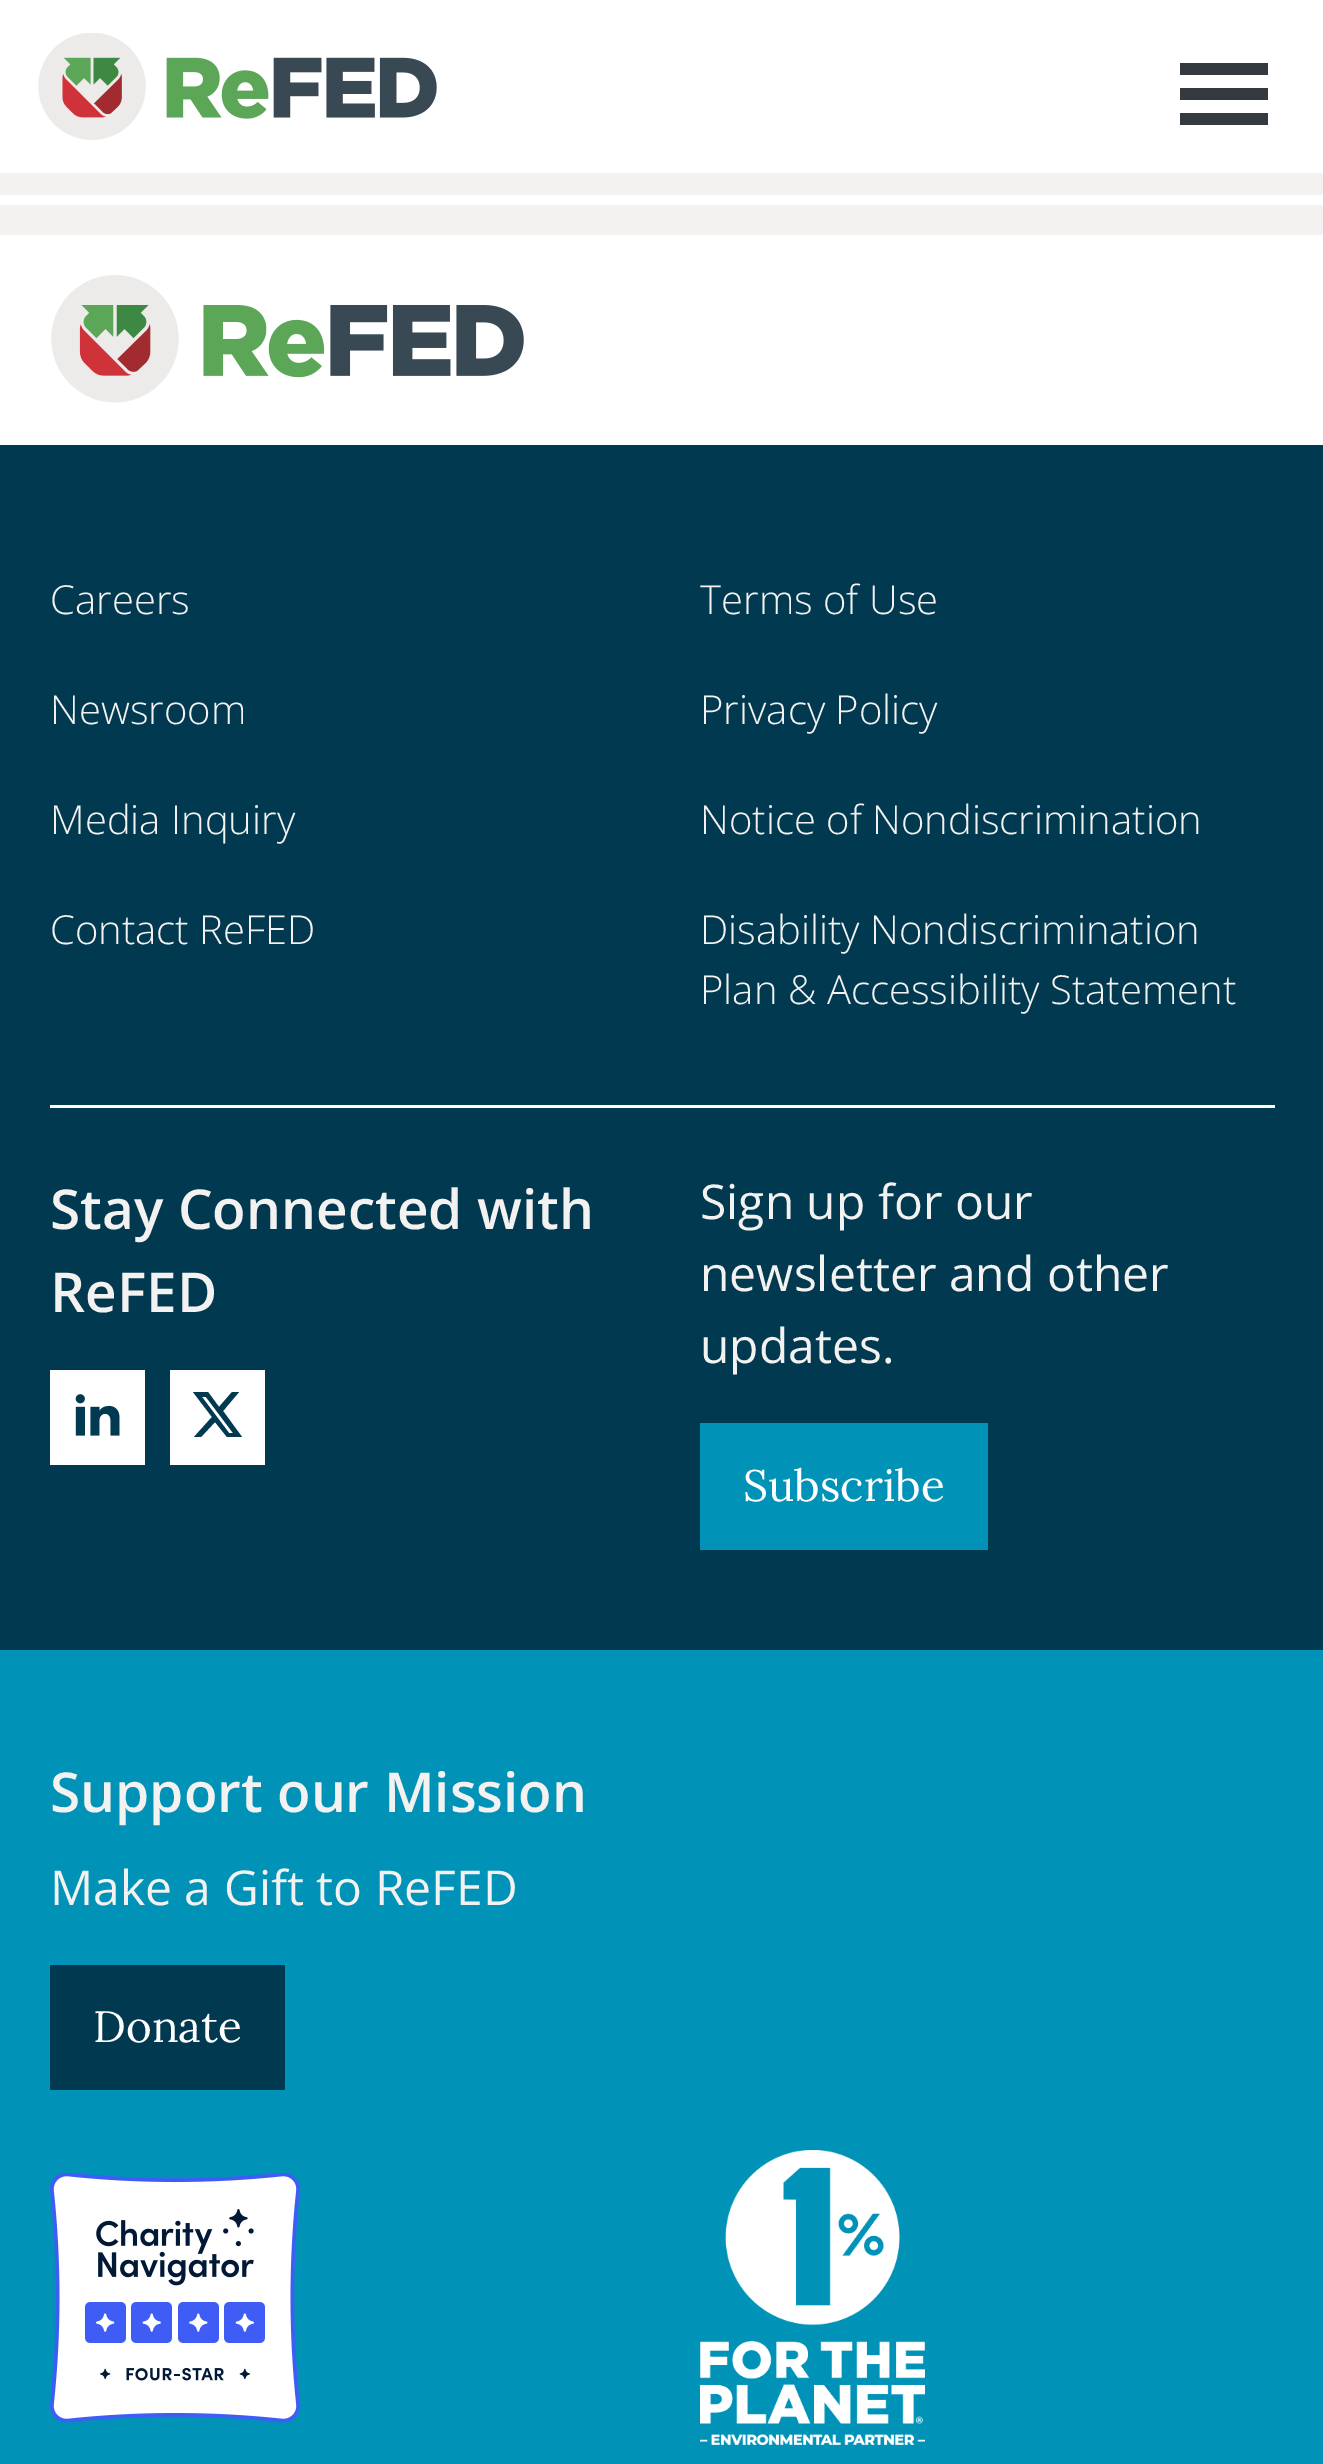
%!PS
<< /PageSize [1323 2464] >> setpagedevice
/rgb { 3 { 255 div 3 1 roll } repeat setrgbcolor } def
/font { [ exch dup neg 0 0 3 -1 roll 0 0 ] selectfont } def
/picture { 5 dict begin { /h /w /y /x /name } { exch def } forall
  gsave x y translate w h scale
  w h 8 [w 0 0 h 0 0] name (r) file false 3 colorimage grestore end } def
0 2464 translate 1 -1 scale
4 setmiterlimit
255 255 255 rgb
0 0 1323 2464 rectfill
243 242 240 rgb
0 173 1323 22 rectfill
(img/1.rgb) 38 33 399 107 picture
[
  [1180 63 88 12 52 58 64]
  [1180 88 88 12 52 58 64]
  [1180 113 88 12 52 58 64]
  [0 205 1323 30 243 242 240]
] { aload pop rgb rectfill } forall
(img/2.rgb) 51 275 473 128 picture
[
  [0 445 1323 1205 0 57 80]
  [50 1105 1225 3 255 255 255]
  [50 1370 95 95 255 255 255]
] { aload pop rgb rectfill } forall
(img/3.rgb) 75 1394 45 42 picture
170 1370 95 95 rectfill
0 57 80 rgb
232 1392 moveto 239 1392 lineto 223 1411 lineto 242 1437 lineto 227 1437 lineto 215 1422 lineto 201 1437 lineto 194 1437 lineto 212 1417 lineto 193 1392 lineto 208 1392 lineto 219 1407 lineto closepath 229 1433 moveto 233 1433 lineto 206 1397 lineto 202 1397 lineto closepath fill
[
  [700 1423 288 127 0 146 183]
  [0 1650 1323 814 0 146 183]
  [50 1965 235 125 0 57 80]
] { aload pop rgb rectfill } forall
(img/4.rgb) 50 2173 250 250 picture
(img/5.rgb) 700 2150 225 295 picture
/OpenSans-Light 40 font
243 242 240 rgb
[
  [(Careers) 50 614]
  [(Newsroom) 50 724]
  [(Media Inquiry) 50 834]
  [(Contact ReFED) 50 944]
  [(Terms of Use) 700 614]
  [(Privacy Policy) 700 724]
  [(Notice of Nondiscrimination) 700 834]
  [(Disability Nondiscrimination) 700 944]
  [(Plan & Accessibility Statement) 700 1004]
] { aload pop moveto show } forall
/OpenSans-SemiBold 55 font
50 1229 moveto (Stay Connected with) show
50 1312 moveto (ReFED) show
/OpenSans-Regular 48 font
[
  [(Sign up for our) 700 1219]
  [(newsletter and other) 700 1291]
  [(updates.) 700 1363]
] { aload pop moveto show } forall
/Lora-Regular 44 font
255 255 255 rgb
743 1501 moveto (Subscribe) show
/OpenSans-SemiBold 55 font
243 242 240 rgb
50 1812 moveto (Support our Mission) show
/OpenSans-Regular 48 font
50 1905 moveto (Make a Gift to ReFED) show
/Lora-Regular 44 font
255 255 255 rgb
93 2042 moveto (Donate) show
showpage
